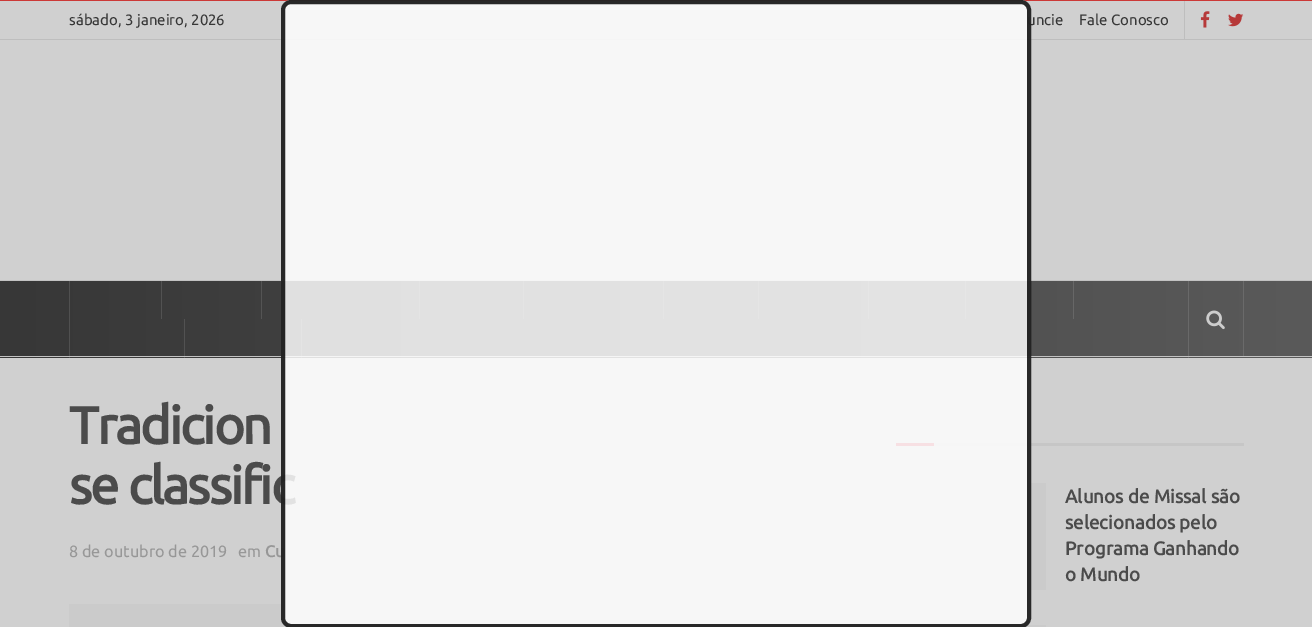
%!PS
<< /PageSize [1312 627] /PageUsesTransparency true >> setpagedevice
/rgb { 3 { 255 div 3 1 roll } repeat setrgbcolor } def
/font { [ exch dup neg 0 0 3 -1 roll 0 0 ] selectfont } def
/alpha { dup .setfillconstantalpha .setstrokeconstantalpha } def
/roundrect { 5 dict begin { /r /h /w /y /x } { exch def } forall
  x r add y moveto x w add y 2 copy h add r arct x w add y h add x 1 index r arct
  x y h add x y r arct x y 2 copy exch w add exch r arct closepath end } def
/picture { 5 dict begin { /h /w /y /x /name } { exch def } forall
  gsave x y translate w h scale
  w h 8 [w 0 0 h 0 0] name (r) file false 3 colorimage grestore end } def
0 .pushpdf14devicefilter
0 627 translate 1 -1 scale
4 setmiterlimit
208 208 208 rgb
0 0 1312 627 rectfill
[
  [0 0 1312 1 204 57 55]
  [0 39 1312 1 190 190 190]
  [1184 1 1 38 190 190 190]
] { aload pop rgb rectfill } forall
(img/1.rgb) 1200 11 10 17 picture
(img/2.rgb) 1228 13 16 14 picture
gsave 0 281 moveto 1312 281 lineto 1312 358 lineto 0 358 lineto closepath clip newpath
<< /ShadingType 2 /ColorSpace /DeviceRGB /Coords [0 319 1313 319] /Extend [true true] /Function << /FunctionType 2 /Domain [0 1] /C0 [0.216 0.216 0.216] /C1 [0.353 0.353 0.353] /N 1 >> >> shfill grestore
gsave 301 319 moveto 302 319 lineto 302 358 lineto 301 358 lineto closepath clip newpath
<< /ShadingType 2 /ColorSpace /DeviceRGB /Coords [0 319 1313 319] /Extend [true true] /Function << /FunctionType 2 /Domain [0 1] /C0 [0.306 0.306 0.306] /C1 [0.424 0.424 0.424] /N 1 >> >> shfill grestore
gsave 184 319 moveto 185 319 lineto 185 358 lineto 184 358 lineto closepath clip newpath
<< /ShadingType 2 /ColorSpace /DeviceRGB /Coords [0 319 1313 319] /Extend [true true] /Function << /FunctionType 2 /Domain [0 1] /C0 [0.306 0.306 0.306] /C1 [0.424 0.424 0.424] /N 1 >> >> shfill grestore
gsave 1073 280 moveto 1074 280 lineto 1074 319 lineto 1073 319 lineto closepath clip newpath
<< /ShadingType 2 /ColorSpace /DeviceRGB /Coords [0 319 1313 319] /Extend [true true] /Function << /FunctionType 2 /Domain [0 1] /C0 [0.306 0.306 0.306] /C1 [0.424 0.424 0.424] /N 1 >> >> shfill grestore
gsave 965 280 moveto 966 280 lineto 966 319 lineto 965 319 lineto closepath clip newpath
<< /ShadingType 2 /ColorSpace /DeviceRGB /Coords [0 319 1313 319] /Extend [true true] /Function << /FunctionType 2 /Domain [0 1] /C0 [0.306 0.306 0.306] /C1 [0.424 0.424 0.424] /N 1 >> >> shfill grestore
gsave 868 280 moveto 869 280 lineto 869 319 lineto 868 319 lineto closepath clip newpath
<< /ShadingType 2 /ColorSpace /DeviceRGB /Coords [0 319 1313 319] /Extend [true true] /Function << /FunctionType 2 /Domain [0 1] /C0 [0.306 0.306 0.306] /C1 [0.424 0.424 0.424] /N 1 >> >> shfill grestore
gsave 758 280 moveto 759 280 lineto 759 319 lineto 758 319 lineto closepath clip newpath
<< /ShadingType 2 /ColorSpace /DeviceRGB /Coords [0 319 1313 319] /Extend [true true] /Function << /FunctionType 2 /Domain [0 1] /C0 [0.306 0.306 0.306] /C1 [0.424 0.424 0.424] /N 1 >> >> shfill grestore
gsave 663 280 moveto 664 280 lineto 664 319 lineto 663 319 lineto closepath clip newpath
<< /ShadingType 2 /ColorSpace /DeviceRGB /Coords [0 319 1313 319] /Extend [true true] /Function << /FunctionType 2 /Domain [0 1] /C0 [0.306 0.306 0.306] /C1 [0.424 0.424 0.424] /N 1 >> >> shfill grestore
gsave 523 280 moveto 524 280 lineto 524 319 lineto 523 319 lineto closepath clip newpath
<< /ShadingType 2 /ColorSpace /DeviceRGB /Coords [0 319 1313 319] /Extend [true true] /Function << /FunctionType 2 /Domain [0 1] /C0 [0.306 0.306 0.306] /C1 [0.424 0.424 0.424] /N 1 >> >> shfill grestore
gsave 419 280 moveto 420 280 lineto 420 319 lineto 419 319 lineto closepath clip newpath
<< /ShadingType 2 /ColorSpace /DeviceRGB /Coords [0 319 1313 319] /Extend [true true] /Function << /FunctionType 2 /Domain [0 1] /C0 [0.306 0.306 0.306] /C1 [0.424 0.424 0.424] /N 1 >> >> shfill grestore
gsave 261 280 moveto 262 280 lineto 262 319 lineto 261 319 lineto closepath clip newpath
<< /ShadingType 2 /ColorSpace /DeviceRGB /Coords [0 319 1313 319] /Extend [true true] /Function << /FunctionType 2 /Domain [0 1] /C0 [0.306 0.306 0.306] /C1 [0.424 0.424 0.424] /N 1 >> >> shfill grestore
gsave 161 280 moveto 162 280 lineto 162 319 lineto 161 319 lineto closepath clip newpath
<< /ShadingType 2 /ColorSpace /DeviceRGB /Coords [0 319 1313 319] /Extend [true true] /Function << /FunctionType 2 /Domain [0 1] /C0 [0.306 0.306 0.306] /C1 [0.424 0.424 0.424] /N 1 >> >> shfill grestore
gsave 69 280 moveto 70 280 lineto 70 358 lineto 69 358 lineto closepath clip newpath
<< /ShadingType 2 /ColorSpace /DeviceRGB /Coords [0 319 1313 319] /Extend [true true] /Function << /FunctionType 2 /Domain [0 1] /C0 [0.306 0.306 0.306] /C1 [0.424 0.424 0.424] /N 1 >> >> shfill grestore
gsave 1188 280 moveto 1189 280 lineto 1189 358 lineto 1188 358 lineto closepath clip newpath
<< /ShadingType 2 /ColorSpace /DeviceRGB /Coords [0 319 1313 319] /Extend [true true] /Function << /FunctionType 2 /Domain [0 1] /C0 [0.306 0.306 0.306] /C1 [0.424 0.424 0.424] /N 1 >> >> shfill grestore
[
  [0 280 1312 1 194 194 194]
  [0 356 1312 1 194 194 194]
  [1243 281 1 75 106 106 106]
] { aload pop rgb rectfill } forall
(img/3.rgb) 1206 310 19 20 picture
[
  [69 604 771 23 203 203 203]
  [934 443 310 3 198 198 198]
  [896 443 38 3 203 63 79]
  [896 483 150 107 203 203 203]
  [896 625 150 2 203 203 203]
] { aload pop rgb rectfill } forall
/Ubuntu-Regular 15 font
55 55 55 rgb
[
  [(sábado, 3 janeiro, 2026) 69 25]
  [(uncie) 1027 25]
  [(Fale Conosco) 1079 25]
] { aload pop moveto show } forall
/Ubuntu-Bold 52.5 font
75 75 75 rgb
69 444 moveto -2.1 0 (Tradicion) ashow
69 504 moveto -2.1 0 (se classific) ashow
/Ubuntu-Regular 16.25 font
151 151 151 rgb
69 557 moveto (8 de outubro de 2019) show
238 557 moveto (em) show
/Ubuntu-Bold 16.25 font
265 557 moveto (Cu) show
0.84 alpha
255 255 255 rgb
281 0 750 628 10 roundrect fill
0 0 0 rgb
4 setlinewidth
283 2 746 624 8 roundrect stroke
/Ubuntu-Bold 18.75 font
1 alpha
75 75 75 rgb
[
  [(Alunos de Missal são) 1065 503]
  [(selecionados pelo) 1065 529]
  [(Programa Ganhando) 1065 555]
  [(o Mundo) 1065 581]
] { aload pop moveto show } forall
.poppdf14devicefilter showpage
